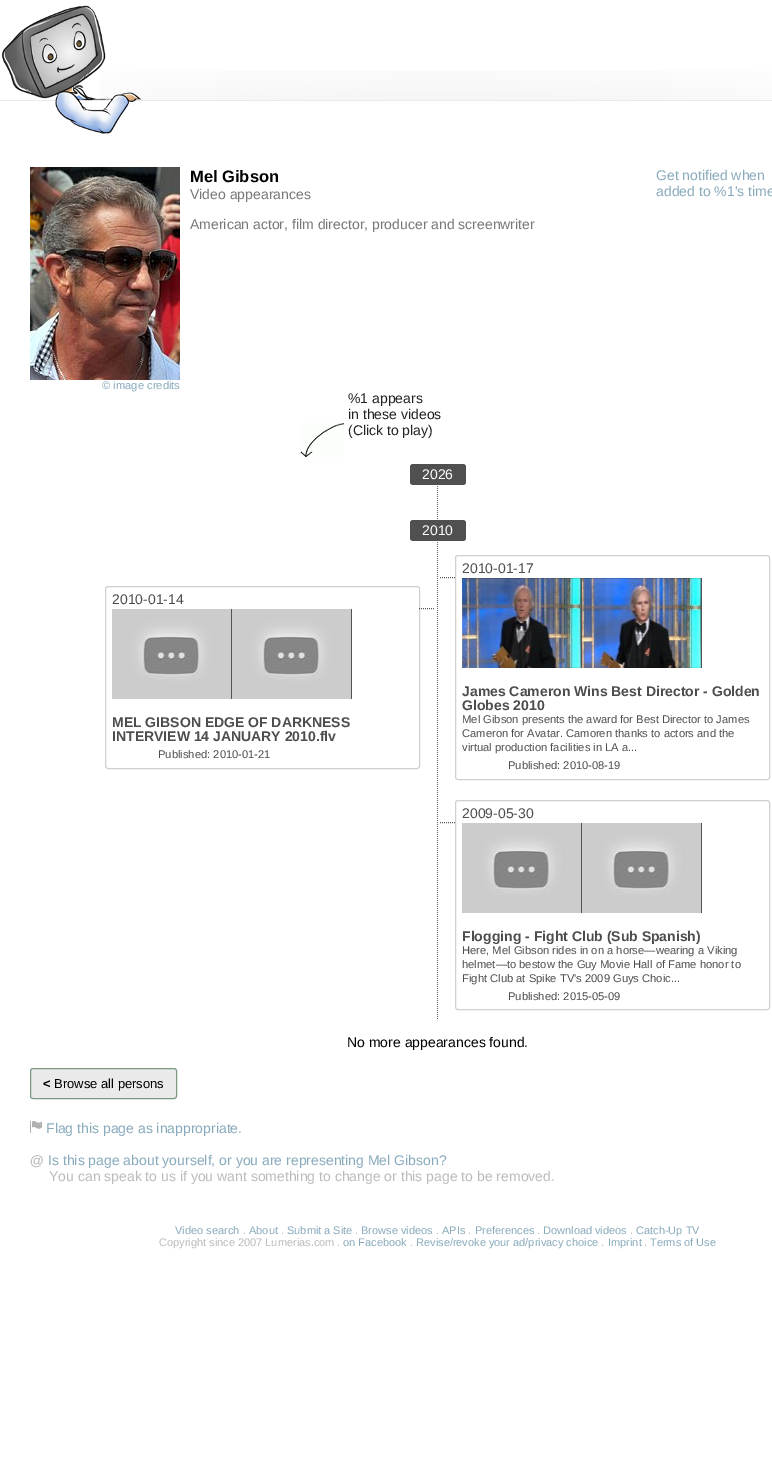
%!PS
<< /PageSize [772 1477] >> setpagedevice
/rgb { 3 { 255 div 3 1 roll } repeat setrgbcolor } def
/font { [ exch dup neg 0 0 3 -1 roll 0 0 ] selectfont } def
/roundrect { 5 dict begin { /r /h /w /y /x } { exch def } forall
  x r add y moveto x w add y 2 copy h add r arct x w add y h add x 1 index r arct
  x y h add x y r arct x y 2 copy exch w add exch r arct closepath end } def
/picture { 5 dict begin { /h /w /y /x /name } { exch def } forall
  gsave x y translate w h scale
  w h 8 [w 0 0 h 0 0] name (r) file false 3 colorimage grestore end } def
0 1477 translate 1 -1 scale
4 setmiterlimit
255 255 255 rgb
0 0 772 1477 rectfill
(img/3.rgb) 100 71 672 29 picture
235 234 235 rgb
0 100 772 1 rectfill
(img/1.rgb) 1 5 140 129 picture
(img/2.rgb) 33 22 54 66 picture
(img/4.rgb) 30 167 150 213 picture
(img/5.rgb) 300 423 44 34 picture
(img/6.rgb) 437 486 1 533 picture
80 80 80 rgb
410 464 56 21 3 roundrect fill
410 520 56 21 3 roundrect fill
208 208 208 rgb
105.5 586.5 314 182 2.5 roundrect stroke
85 85 85 rgb
[1 1] 0 setdash
419 608.5 moveto 435 608.5 lineto stroke
(img/7.rgb) 112 609 119 90 picture
231 609 1 90 rectfill
(img/7.rgb) 232 609 119 90 picture
351 609 1 90 rectfill
208 208 208 rgb
[] 0 setdash
455.5 555.5 314 224 2.5 roundrect stroke
85 85 85 rgb
[1 1] 0 setdash
440 577.5 moveto 456 577.5 lineto stroke
(img/8.rgb) 462 578 119 90 picture
581 578 1 90 rectfill
(img/9.rgb) 582 578 119 90 picture
701 578 1 90 rectfill
208 208 208 rgb
[] 0 setdash
455.5 800.5 314 209 2.5 roundrect stroke
85 85 85 rgb
[1 1] 0 setdash
440 822.5 moveto 456 822.5 lineto stroke
(img/7.rgb) 462 823 119 90 picture
581 823 1 90 rectfill
(img/7.rgb) 582 823 119 90 picture
701 823 1 90 rectfill
235 234 235 rgb
30.5 1068.5 146 30 2.5 roundrect gsave fill grestore
124 153 131 rgb
[] 0 setdash
stroke
(img/10.rgb) 30 1121 12 12 picture
/LiberationSans-Bold 16.5 font
0 0 0 rgb
190 182 moveto (Mel Gibson) show
/LiberationSans-Regular 14 font
119 119 119 rgb
190 199 moveto (Video appearances) show
190 229 moveto (American actor, film director, producer and screenwriter) show
/LiberationSans-Regular 11.2 font
136 170 187 rgb
102 389 moveto (© image credits) show
/LiberationSans-Regular 14 font
656 180 moveto (Get notified when) show
656 196 moveto (added to %1's time) show
34 34 34 rgb
[
  [(%1 appears) 348 403]
  [(in these videos) 348 419]
  [(\(Click to play\)) 348 435]
] { aload pop moveto show } forall
255 255 255 rgb
422 479 moveto (2026) show
422 535 moveto (2010) show
77 77 77 rgb
112 604 moveto (2010-01-14) show
/LiberationSans-Bold 14 font
112 727 moveto (MEL GIBSON EDGE OF DARKNESS) show
112 741 moveto (INTERVIEW 14 JANUARY 2010.flv) show
/LiberationSans-Regular 11.2 font
158 758 moveto (Published: 2010-01-21) show
/LiberationSans-Regular 14 font
462 573 moveto (2010-01-17) show
/LiberationSans-Bold 14 font
462 696 moveto (James Cameron Wins Best Director - Golden) show
462 710 moveto (Globes 2010) show
/LiberationSans-Regular 11.2 font
[
  [(Mel Gibson presents the award for Best Director to James) 462 723]
  [(Cameron for Avatar. Camoren thanks to actors and the) 462 737]
  [(virtual production facilities in LA a...) 462 751]
  [(Published: 2010-08-19) 508 769]
] { aload pop moveto show } forall
/LiberationSans-Regular 14 font
462 818 moveto (2009-05-30) show
/LiberationSans-Bold 14 font
462 941 moveto (Flogging - Fight Club \(Sub Spanish\)) show
/LiberationSans-Regular 11.2 font
[
  [(Here, Mel Gibson rides in on a horse—wearing a Viking) 462 954]
  [(helmet—to bestow the Guy Movie Hall of Fame honor to) 462 968]
  [(Fight Club at Spike TV's 2009 Guys Choic...) 462 982]
  [(Published: 2015-05-09) 508 1000]
] { aload pop moveto show } forall
/LiberationSans-Regular 14 font
0 0 0 rgb
347 1047 moveto (No more appearances found.) show
/LiberationSans-Bold 13 font
43 1088 moveto (<) show
/LiberationSans-Regular 13 font
54 1088 moveto (Browse all persons) show
/LiberationSans-Regular 14 font
136 170 187 rgb
46 1133 moveto (Flag this page as inappropriate.) show
/LiberationSans-Bold 14 font
187 187 187 rgb
30 1165 moveto (@) show
/LiberationSans-Regular 14 font
136 170 187 rgb
48 1165 moveto (Is this page about yourself, or you are representing Mel Gibson?) show
187 187 187 rgb
49 1181 moveto (You can speak to us if you want something to change or this page to be removed.) show
/LiberationSans-Regular 11 font
136 170 187 rgb
175 1234 moveto (Video search) show
187 187 187 rgb
243 1234 moveto (.) show
136 170 187 rgb
249 1234 moveto (About) show
187 187 187 rgb
281 1234 moveto (.) show
136 170 187 rgb
287 1234 moveto (Submit a Site) show
187 187 187 rgb
355 1234 moveto (.) show
136 170 187 rgb
361 1234 moveto (Browse videos) show
187 187 187 rgb
436 1234 moveto (.) show
136 170 187 rgb
442 1234 moveto (APIs) show
187 187 187 rgb
468 1234 moveto (.) show
136 170 187 rgb
475 1234 moveto (Preferences) show
187 187 187 rgb
537 1234 moveto (.) show
136 170 187 rgb
543 1234 moveto (Download videos) show
187 187 187 rgb
630 1234 moveto (.) show
136 170 187 rgb
636 1234 moveto (Catch-Up TV) show
187 187 187 rgb
159 1246 moveto (Copyright since 2007 Lumerias.com .) show
136 170 187 rgb
343 1246 moveto (on Facebook) show
187 187 187 rgb
410 1246 moveto (.) show
136 170 187 rgb
416 1246 moveto (Revise/revoke your ad/privacy choice) show
187 187 187 rgb
601 1246 moveto (.) show
136 170 187 rgb
608 1246 moveto (Imprint) show
187 187 187 rgb
644 1246 moveto (.) show
136 170 187 rgb
650 1246 moveto (Terms of Use) show
showpage
